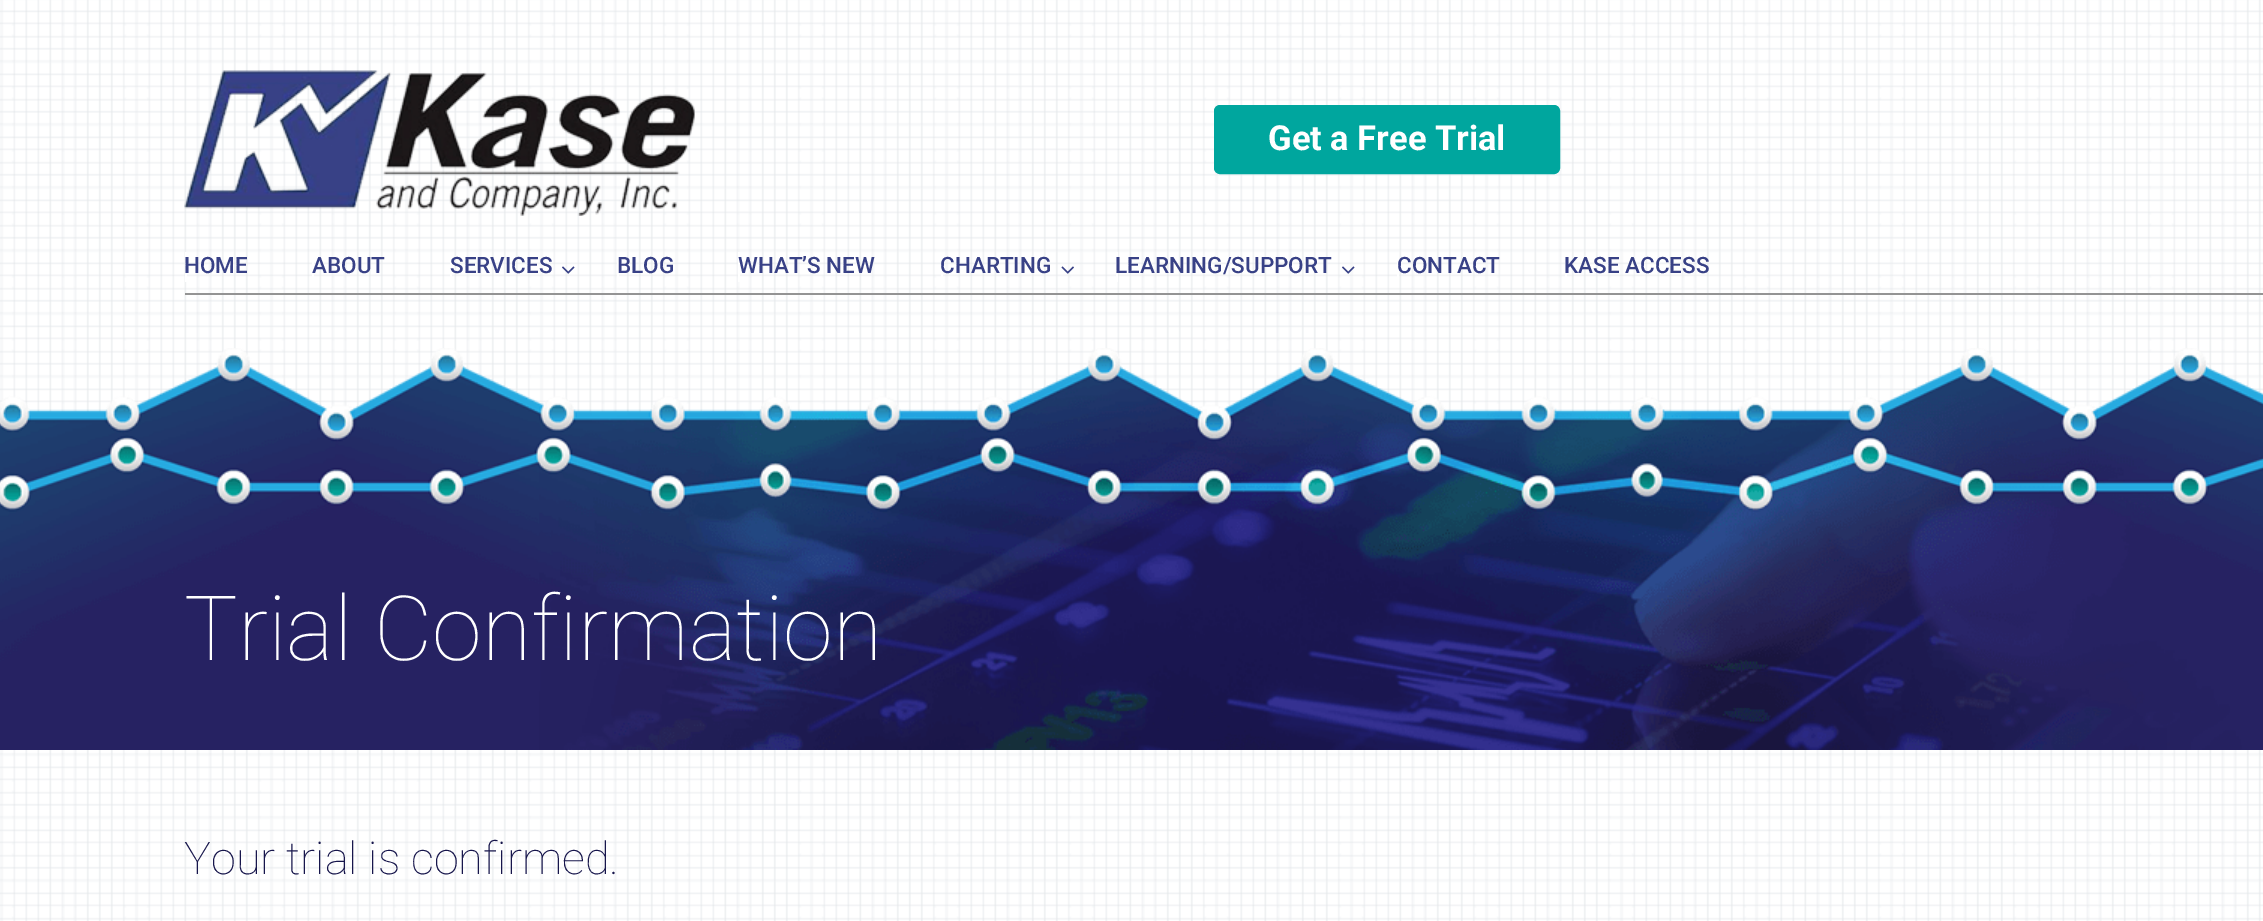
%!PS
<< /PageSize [2263 921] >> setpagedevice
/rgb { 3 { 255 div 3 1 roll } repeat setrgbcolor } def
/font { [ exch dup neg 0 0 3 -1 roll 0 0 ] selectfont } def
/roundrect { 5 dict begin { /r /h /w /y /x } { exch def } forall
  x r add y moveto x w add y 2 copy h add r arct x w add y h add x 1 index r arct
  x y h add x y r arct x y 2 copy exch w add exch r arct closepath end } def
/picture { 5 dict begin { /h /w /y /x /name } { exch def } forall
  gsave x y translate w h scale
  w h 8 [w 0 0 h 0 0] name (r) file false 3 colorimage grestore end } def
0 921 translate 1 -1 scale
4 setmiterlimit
255 255 255 rgb
0 0 2263 921 rectfill
(img/1.rgb) 0 0 2263 921 picture
(img/2.rgb) 184 70 511 146 picture
0 166 158 rgb
1215 106 344 67 5 roundrect gsave fill grestore
2 setlinewidth
stroke
[
  [185 252 2 30 255 255 255]
  [312 262 2 20 255 255 255]
  [450 262 2 20 255 255 255]
] { aload pop rgb rectfill } forall
(img/3.rgb) 562 266 13 8 picture
[
  [617 262 2 20 255 255 255]
  [738 252 2 30 255 255 255]
  [941 262 2 20 255 255 255]
] { aload pop rgb rectfill } forall
(img/4.rgb) 1061 266 13 8 picture
1116 252 2 30 rectfill
(img/5.rgb) 1342 266 13 8 picture
[
  [1397 262 2 20 255 255 255]
  [1565 262 2 20 255 255 255]
  [185 293 2078 2 148 148 148]
] { aload pop rgb rectfill } forall
(img/6.rgb) 0 348 2263 402 picture
/Roboto-Bold 34.5 font
255 255 255 rgb
1268 150 moveto (Get a Free Trial) show
/Roboto-Medium 22.5 font
56 65 134 rgb
[
  [(HOME) 184 273]
  [(ABOUT) 312 273]
  [(SERVICES) 450 273]
  [(BLOG) 617 273]
  [(WHAT’S NEW) 738 273]
  [(CHARTING) 940 273]
  [(LEARNING/SUPPORT) 1115 273]
  [(CONTACT) 1397 273]
  [(KASE ACCESS) 1564 273]
] { aload pop moveto show } forall
/Roboto-Thin 90 font
255 255 255 rgb
184 660 moveto (Trial Confirmation) show
/Roboto-Thin 45 font
23 22 76 rgb
184 874 moveto (Your trial is confirmed.) show
showpage
